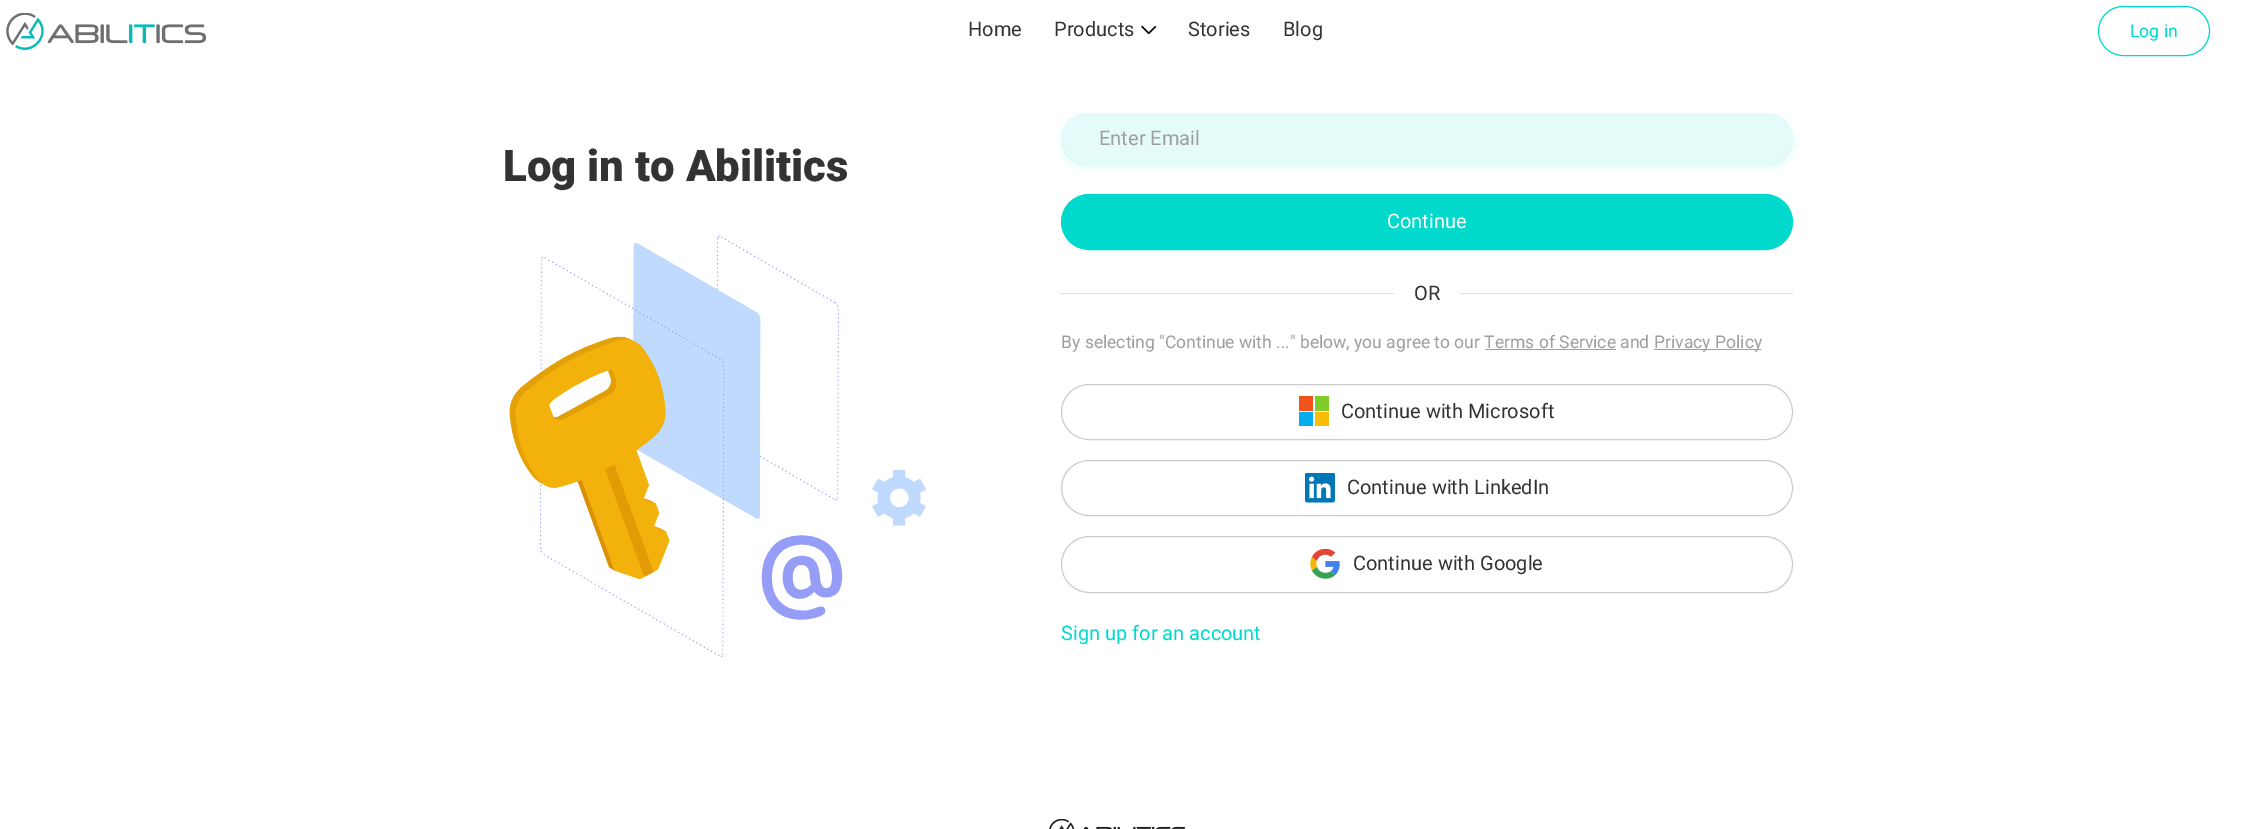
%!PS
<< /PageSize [2259 829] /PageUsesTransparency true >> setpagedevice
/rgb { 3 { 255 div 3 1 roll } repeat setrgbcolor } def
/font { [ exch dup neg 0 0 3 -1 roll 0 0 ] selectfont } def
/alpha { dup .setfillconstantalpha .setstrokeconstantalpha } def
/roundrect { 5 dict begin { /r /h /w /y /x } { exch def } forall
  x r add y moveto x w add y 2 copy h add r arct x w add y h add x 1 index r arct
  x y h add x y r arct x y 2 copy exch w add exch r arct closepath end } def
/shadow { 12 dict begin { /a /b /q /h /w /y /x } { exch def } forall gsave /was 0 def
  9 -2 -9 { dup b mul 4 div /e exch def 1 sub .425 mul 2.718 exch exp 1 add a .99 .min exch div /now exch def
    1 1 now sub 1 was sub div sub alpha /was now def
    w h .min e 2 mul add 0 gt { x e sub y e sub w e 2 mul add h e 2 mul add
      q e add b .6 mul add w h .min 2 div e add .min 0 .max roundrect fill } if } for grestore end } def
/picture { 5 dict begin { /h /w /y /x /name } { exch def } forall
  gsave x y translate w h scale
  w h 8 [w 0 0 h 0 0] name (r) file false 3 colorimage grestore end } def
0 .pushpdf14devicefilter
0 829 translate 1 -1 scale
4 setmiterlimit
255 255 255 rgb
0 0 2259 829 rectfill
(img/1.rgb) 6 13 200 37 picture
(img/2.rgb) 1141 25 15 10 picture
0 217 204 rgb
2098.5 6.5 111 49 24.5 roundrect stroke
(img/3.rgb) 1049 819 136 10 picture
(img/4.rgb) 509 235 417 422 picture
gsave
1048 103 moveto 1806 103 lineto 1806 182 lineto 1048 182 lineto closepath 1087 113 moveto 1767 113 lineto 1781.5 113 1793 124.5 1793 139 curveto 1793 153.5 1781.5 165 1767 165 curveto 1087 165 lineto 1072.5 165 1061 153.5 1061 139 curveto 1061 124.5 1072.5 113 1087 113 curveto closepath eoclip newpath
1061 116 732 53 26.5 4 0.1 shadow
grestore
0.1 alpha
1061 113 732 52 26 roundrect fill
1 alpha
1061.5 194.5 731 55 27.5 roundrect gsave fill grestore
stroke
[
  [1061 293 333 1 221 221 221]
  [1460 293 333 1 221 221 221]
  [1654 349 107 1 158 158 158]
  [1485 349 131 1 158 158 158]
] { aload pop rgb rectfill } forall
204 204 204 rgb
1061.5 384.5 731 55 27.5 roundrect stroke
[
  [1299 396 14 15 241 81 27]
  [1315 396 14 15 128 204 40]
  [1299 412 14 14 0 173 239]
  [1315 412 14 14 251 188 9]
] { aload pop rgb rectfill } forall
204 204 204 rgb
1061.5 460.5 731 55 27.5 roundrect stroke
(img/5.rgb) 1305 473 30 30 picture
1061.5 536.5 731 56 28 roundrect stroke
(img/6.rgb) 1310 549 30 30 picture
/Roboto-Regular 20 font
51 51 51 rgb
[
  [(Home) 968 36]
  [(Products) 1054 36]
  [(Stories) 1188 36]
  [(Blog) 1283 36]
] { aload pop moveto show } forall
/Roboto-Regular 17.5 font
0 217 204 rgb
2130 37 moveto (Log in) show
/Roboto-Black 43.75 font
51 51 51 rgb
503 181 moveto (Log in to Abilitics) show
/Roboto-Regular 20 font
158 158 158 rgb
1099 145 moveto (Enter Email) show
255 255 255 rgb
1387 228 moveto (Continue) show
51 51 51 rgb
1414 300 moveto (OR) show
/Roboto-Regular 17.5 font
158 158 158 rgb
1061 348 moveto (By selecting "Continue with ..." below, you agree to our Terms of Service and) show
1654 348 moveto (Privacy Policy) show
/Roboto-Regular 20 font
51 51 51 rgb
[
  [(Continue with Microsoft) 1341 418]
  [(Continue with LinkedIn) 1347 494]
  [(Continue with Google) 1353 570]
] { aload pop moveto show } forall
0 217 204 rgb
1061 640 moveto (Sign up for an account) show
.poppdf14devicefilter showpage
